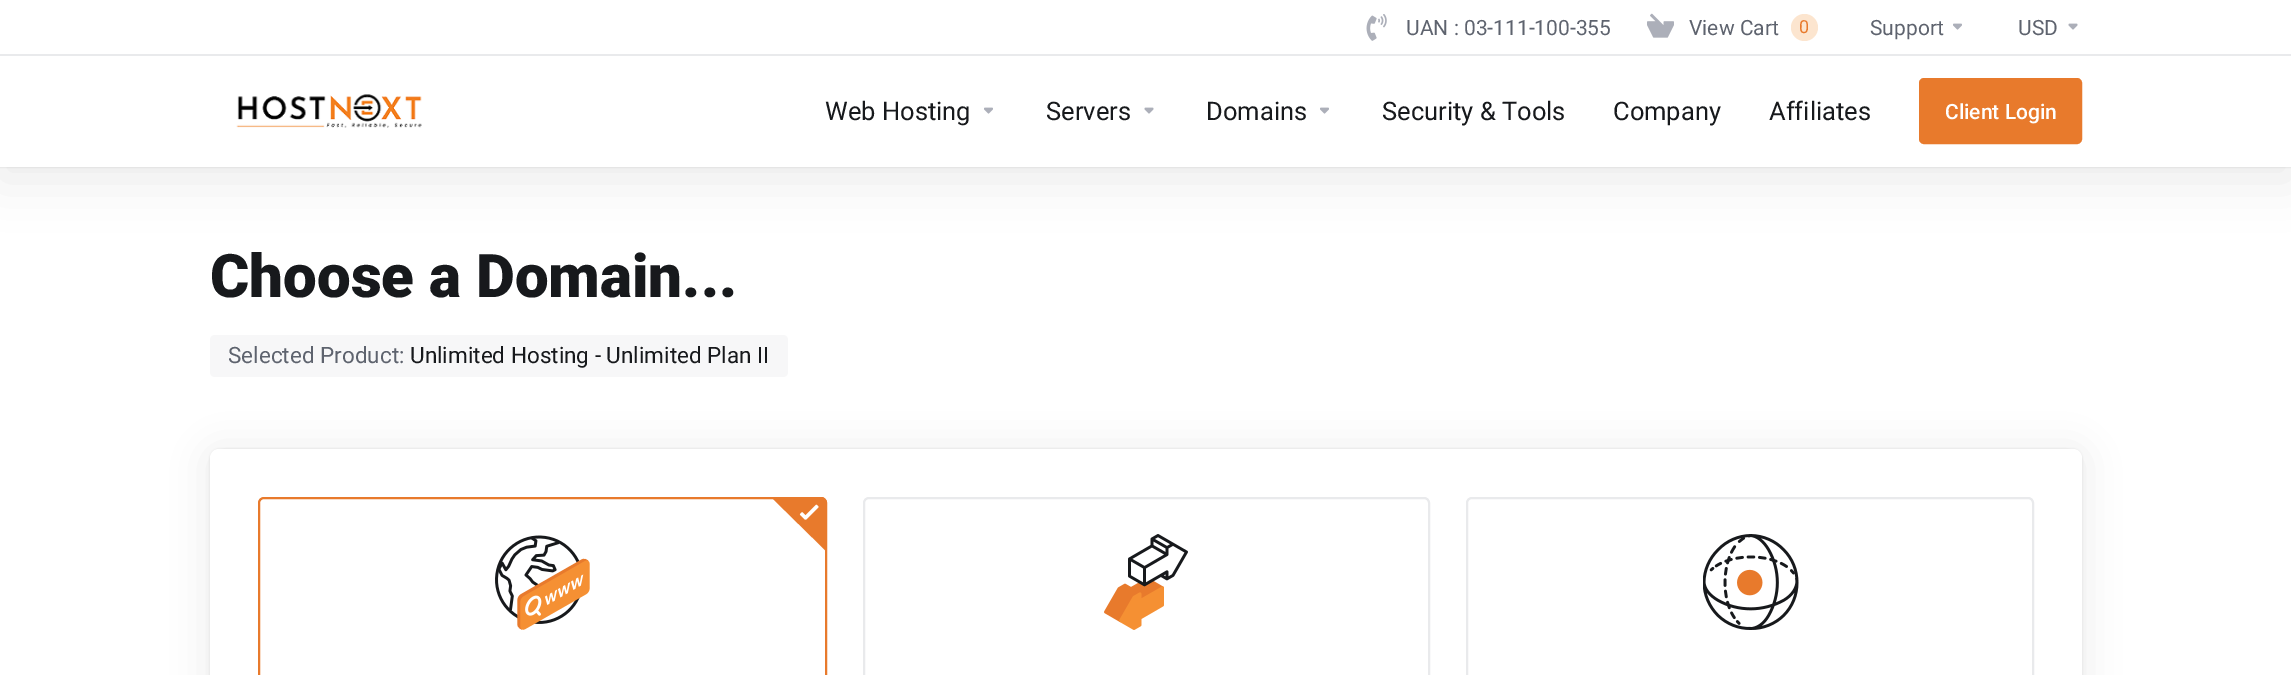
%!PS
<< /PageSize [2291 675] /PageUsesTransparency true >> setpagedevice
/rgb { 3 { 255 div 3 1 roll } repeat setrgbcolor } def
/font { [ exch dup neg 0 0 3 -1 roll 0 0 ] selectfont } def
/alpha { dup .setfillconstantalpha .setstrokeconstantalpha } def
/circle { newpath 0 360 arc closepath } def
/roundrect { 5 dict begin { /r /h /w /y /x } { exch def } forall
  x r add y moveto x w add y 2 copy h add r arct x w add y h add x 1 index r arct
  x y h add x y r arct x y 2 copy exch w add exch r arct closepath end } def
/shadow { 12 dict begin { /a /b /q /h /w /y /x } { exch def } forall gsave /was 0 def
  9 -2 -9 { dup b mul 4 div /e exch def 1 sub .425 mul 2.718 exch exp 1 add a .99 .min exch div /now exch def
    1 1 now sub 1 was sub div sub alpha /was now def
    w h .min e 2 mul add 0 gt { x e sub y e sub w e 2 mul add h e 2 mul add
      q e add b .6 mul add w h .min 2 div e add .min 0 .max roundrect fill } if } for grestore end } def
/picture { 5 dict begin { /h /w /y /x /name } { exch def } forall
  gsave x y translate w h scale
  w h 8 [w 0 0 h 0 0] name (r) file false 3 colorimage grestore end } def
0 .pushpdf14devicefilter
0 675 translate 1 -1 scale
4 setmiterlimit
255 255 255 rgb
0 0 2291 675 rectfill
0 0 0 rgb
0 12 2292 167 0 24 0.08 shadow
0 0 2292 167 0 1 0.12 shadow
255 255 255 rgb
0 0 2291 167 rectfill
233 234 236 rgb
0 54 2291 2 rectfill
(img/1.rgb) 1366 14 21 27 picture
(img/2.rgb) 1647 13 27 25 picture
252 229 207 rgb
1804.5 27.5 13.5 circle fill
(img/3.rgb) 1953 23 9 7 picture
(img/4.rgb) 2068 23 10 7 picture
(img/5.rgb) 236 94 186 34 picture
(img/3.rgb) 984 107 9 7 picture
(img/4.rgb) 1144 107 10 7 picture
(img/3.rgb) 1320 107 9 7 picture
232 122 44 rgb
1920 79 161 64 4 roundrect gsave fill grestore
2 setlinewidth
stroke
247 247 248 rgb
215 335 moveto 410 335 lineto 410 377 lineto 215 377 lineto 212 377 210 375 210 372 curveto 210 340 lineto 210 337 212 335 215 335 curveto closepath fill
410 335 360 42 rectfill
770 335 moveto 783 335 lineto 786 335 788 337 788 340 curveto 788 372 lineto 788 375 786 377 783 377 curveto 770 377 lineto closepath fill
0 0 0 rgb
210 452 1872 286 9 18 0.08 shadow
210 449 1872 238 9 1 0.1 shadow
255 255 255 rgb
210 449 1872 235 9 roundrect fill
232 122 44 rgb
259 498 567 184 5 roundrect stroke
827 550 moveto 826 551 lineto 771 497 lineto 821 497 lineto 824 497 827 500 827 503 curveto closepath fill
(img/6.rgb) 799 504 20 16 picture
(img/7.rgb) 495 535 95 95 picture
233 234 236 rgb
864 498 565 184 5 roundrect stroke
(img/8.rgb) 1104 534 84 96 picture
1467 498 566 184 5 roundrect stroke
(img/9.rgb) 1703 534 96 96 picture
/Roboto-Regular 21 font
94 99 110 rgb
1406 35 moveto (UAN : 03-111-100-355) show
1689 35 moveto (View Cart) show
/Roboto-Regular 18 font
232 122 44 rgb
1799 33 moveto (0) show
/Roboto-Regular 21 font
94 99 110 rgb
1870 35 moveto (Support) show
2018 35 moveto (USD) show
/Roboto-Regular 25.5 font
23 25 28 rgb
[
  [(Web Hosting) 825 120]
  [(Servers) 1046 120]
  [(Domains) 1206 120]
  [(Security & Tools) 1382 120]
  [(Company) 1613 120]
  [(Affiliates) 1769 120]
] { aload pop moveto show } forall
/Roboto-Medium 21 font
255 255 255 rgb
1945 119 moveto (Client Login) show
/Roboto-Black 60 font
23 25 28 rgb
210 297 moveto (Choose a Domain...) show
/Roboto-Regular 22.5 font
94 99 110 rgb
228 363 moveto (Selected Product:) show
23 25 28 rgb
410 363 moveto (Unlimited Hosting - Unlimited Plan II) show
.poppdf14devicefilter showpage
